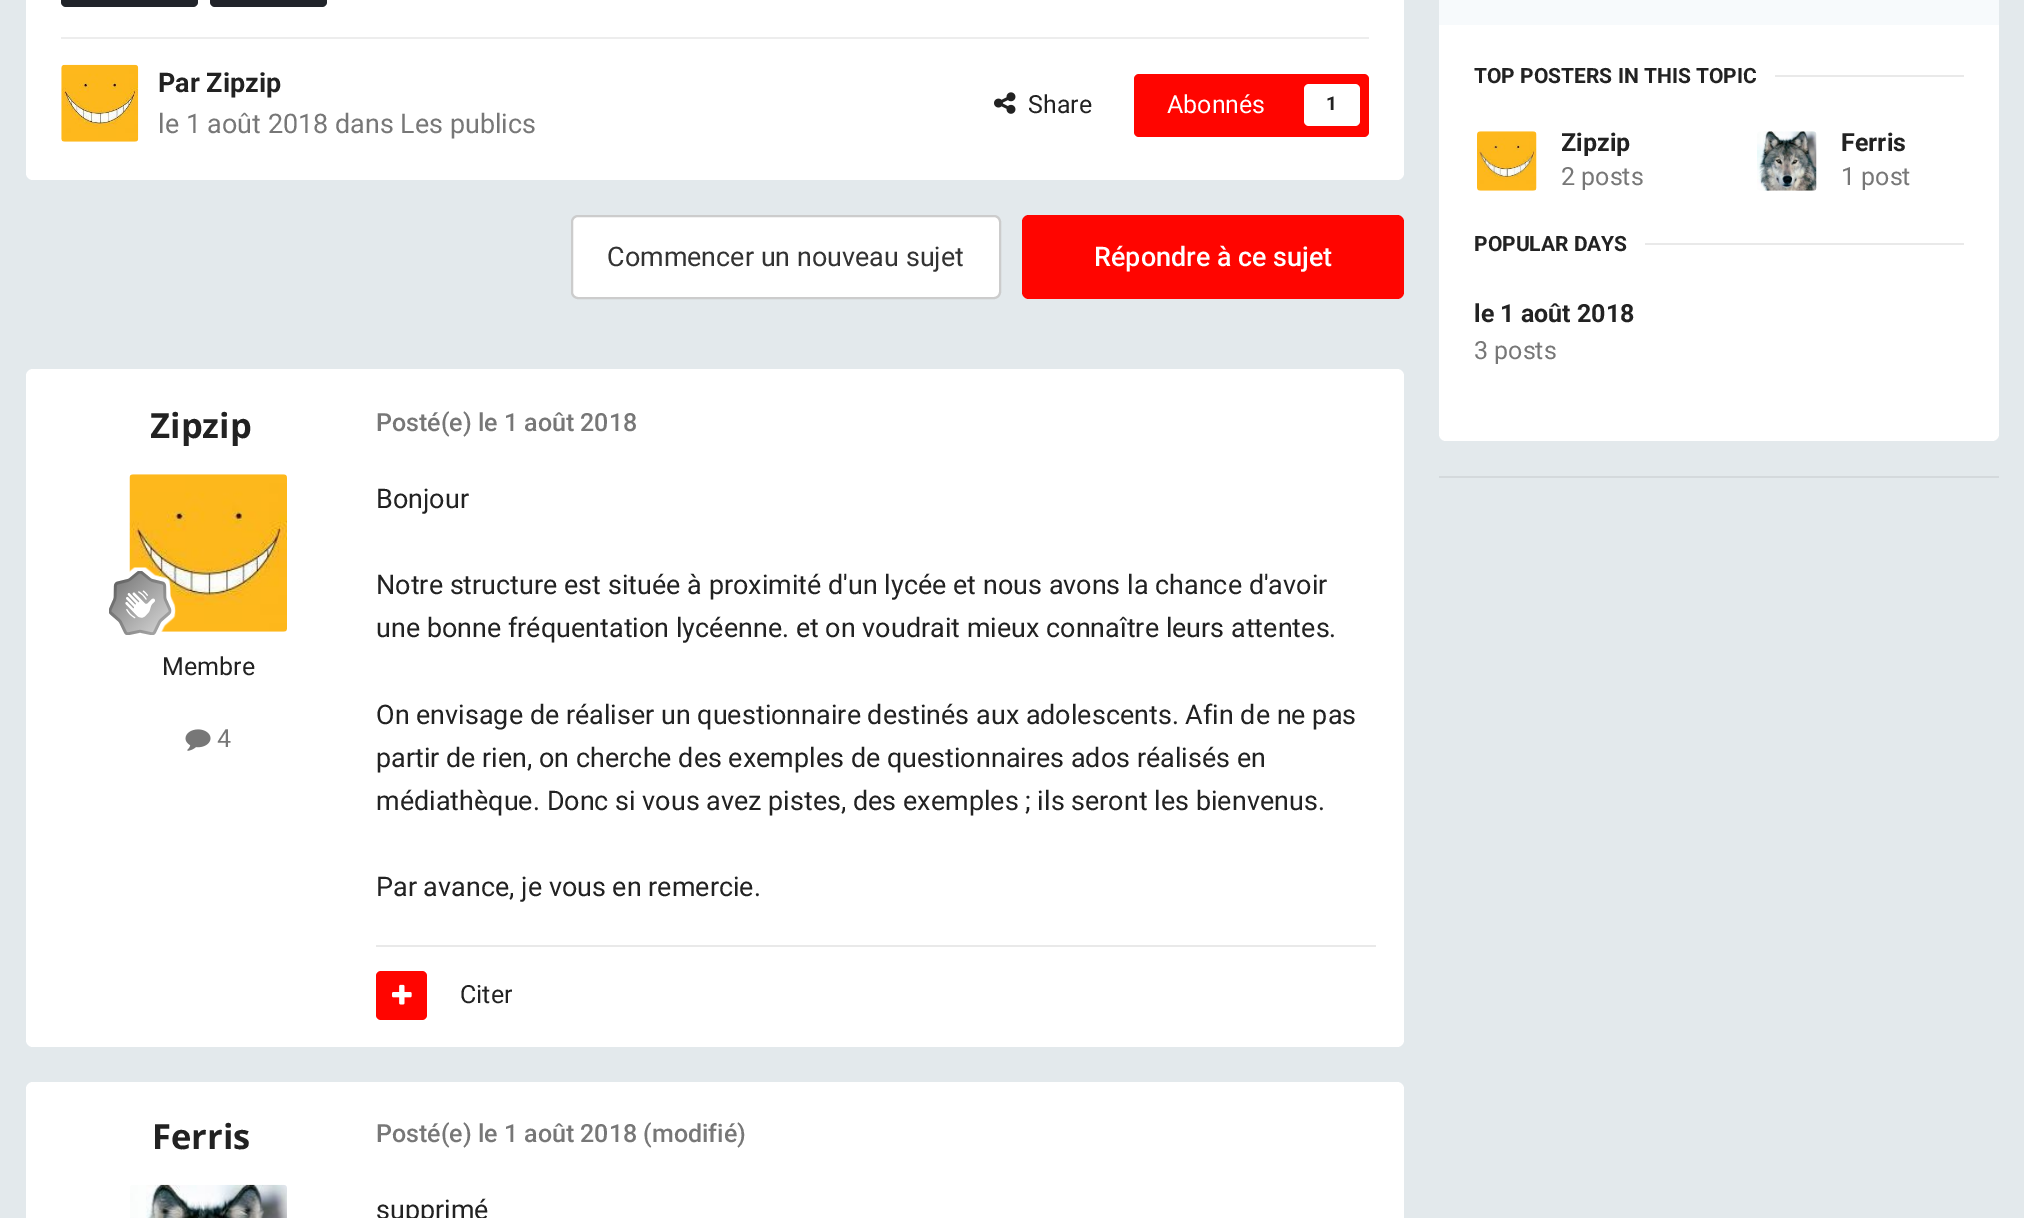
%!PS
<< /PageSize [2024 1218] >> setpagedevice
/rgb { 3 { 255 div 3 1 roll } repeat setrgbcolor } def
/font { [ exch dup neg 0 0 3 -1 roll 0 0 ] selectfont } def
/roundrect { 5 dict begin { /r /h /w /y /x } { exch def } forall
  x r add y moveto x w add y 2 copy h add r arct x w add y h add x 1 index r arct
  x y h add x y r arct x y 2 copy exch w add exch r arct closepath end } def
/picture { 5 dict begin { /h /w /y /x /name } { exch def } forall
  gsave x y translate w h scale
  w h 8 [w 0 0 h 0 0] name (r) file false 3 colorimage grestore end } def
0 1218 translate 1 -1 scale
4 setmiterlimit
227 233 236 rgb
0 0 2024 1218 rectfill
255 255 255 rgb
26 -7 1378 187 7 roundrect fill
33 36 42 rgb
61 -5 137 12 5 roundrect fill
210 -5 117 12 5 roundrect fill
237 237 237 rgb
61 37 1308 2 rectfill
(img/1.rgb) 61 64 78 78 picture
(img/2.rgb) 994 92 22 22 picture
255 5 0 rgb
1134 74 235 63 5 roundrect fill
255 255 255 rgb
1304 84 56 42 5 roundrect fill
572 216 428 82 6 roundrect gsave fill grestore
204 204 204 rgb
2 setlinewidth
stroke
255 5 0 rgb
1022 215 382 84 7 roundrect fill
255 255 255 rgb
26 369 1378 678 7 roundrect fill
(img/3.rgb) 129 474 158 158 picture
(img/4.rgb) 109 567 67 68 picture
(img/5.rgb) 185 729 26 22 picture
233 233 233 rgb
376 945 1000 2 rectfill
255 5 0 rgb
376 971 51 49 5 roundrect fill
(img/6.rgb) 392 984 20 21 picture
255 255 255 rgb
26 1082 1378 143 7 roundrect fill
(img/7.rgb) 130 1184 157 34 picture
1439 -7 560 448 7 roundrect fill
247 250 252 rgb
1439 0 560 25 rectfill
233 233 233 rgb
1775 75 189 2 rectfill
(img/8.rgb) 1477 131 60 60 picture
(img/9.rgb) 1757 131 60 60 picture
1645 243 319 2 rectfill
212 217 220 rgb
1439 476 560 2 rectfill
/Roboto-Bold 26.95 font
34 34 34 rgb
158 92 moveto (Par Zipzip) show
/Roboto-Regular 26.95 font
119 119 119 rgb
158 133 moveto (le 1 août 2018 dans Les publics) show
/Roboto-Regular 25 font
34 34 34 rgb
1028 113 moveto (Share) show
255 255 255 rgb
1167 113 moveto (Abonnés) show
/Roboto-Bold 19 font
34 34 34 rgb
1326 110 moveto (1) show
/Roboto-Regular 26.95 font
51 51 51 rgb
607 266 moveto (Commencer un nouveau sujet) show
/Roboto-Medium 26.95 font
255 255 255 rgb
1094 266 moveto (Répondre à ce sujet) show
gsave
151 404 101 42 rectclip
/OpenSans-Bold 34.5 font
34 34 34 rgb
150 438 moveto (Zipzip) show
grestore
/Roboto-Regular 25 font
34 34 34 rgb
162 675 moveto (Membre) show
119 119 119 rgb
217 747 moveto (4) show
/Roboto-Medium 25 font
376 431 moveto (Posté\(e\) le 1 août 2018) show
/Roboto-Regular 26.95 font
34 34 34 rgb
[
  [(Bonjour) 376 508]
  [(Notre structure est située à proximité d'un lycée et nous avons la chance d'avoir) 376 594]
  [(une bonne fréquentation lycéenne. et on voudrait mieux connaître leurs attentes.) 376 637]
  [(On envisage de réaliser un questionnaire destinés aux adolescents. Afin de ne pas) 376 724]
  [(partir de rien, on cherche des exemples de questionnaires ados réalisés en) 376 767]
  [(médiathèque. Donc si vous avez pistes, des exemples ; ils seront les bienvenus.) 376 810]
  [(Par avance, je vous en remercie.) 376 896]
] { aload pop moveto show } forall
/Roboto-Regular 25 font
460 1003 moveto (Citer) show
/OpenSans-Bold 34.5 font
152 1149 moveto (Ferris) show
/Roboto-Medium 25 font
119 119 119 rgb
376 1142 moveto (Posté\(e\) le 1 août 2018 \(modifié\)) show
/Roboto-Regular 26.95 font
34 34 34 rgb
376 1219 moveto (supprimé) show
/Roboto-Bold 21 font
1474 83 moveto (TOP POSTERS IN THIS TOPIC) show
/Roboto-Bold 25 font
1561 151 moveto (Zipzip) show
/Roboto-Regular 25 font
119 119 119 rgb
1561 185 moveto (2 posts) show
/Roboto-Bold 25 font
34 34 34 rgb
1841 151 moveto (Ferris) show
/Roboto-Regular 25 font
119 119 119 rgb
1841 185 moveto (1 post) show
/Roboto-Bold 21 font
34 34 34 rgb
1474 251 moveto (POPULAR DAYS) show
/Roboto-Bold 25 font
1474 322 moveto (le 1 août 2018) show
/Roboto-Regular 25 font
119 119 119 rgb
1474 359 moveto (3 posts) show
showpage
